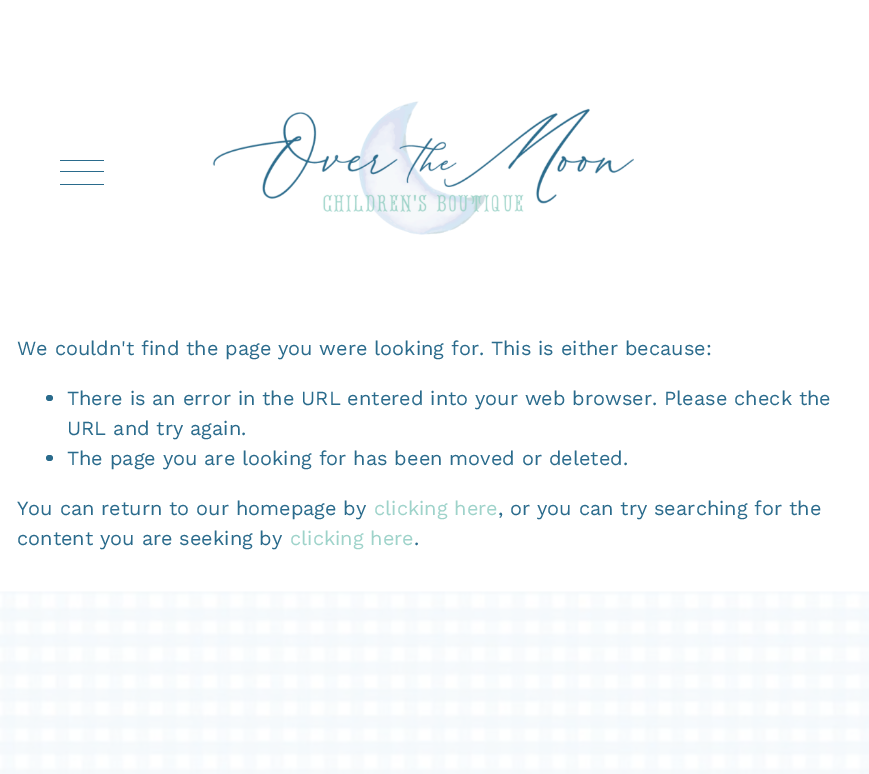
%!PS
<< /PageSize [869 774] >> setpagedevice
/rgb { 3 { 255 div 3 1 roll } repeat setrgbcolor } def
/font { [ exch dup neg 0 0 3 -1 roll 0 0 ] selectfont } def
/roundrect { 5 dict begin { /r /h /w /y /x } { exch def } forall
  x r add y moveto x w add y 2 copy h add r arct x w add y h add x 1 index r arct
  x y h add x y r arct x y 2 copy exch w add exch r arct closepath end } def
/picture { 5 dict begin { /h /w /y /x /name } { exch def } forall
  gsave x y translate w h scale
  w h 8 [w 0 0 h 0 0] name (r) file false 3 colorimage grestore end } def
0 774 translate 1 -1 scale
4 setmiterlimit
255 255 255 rgb
0 0 869 774 rectfill
[
  [60 160 44 1 42 107 140]
  [60 171 44 1 42 107 140]
  [60 184 44 1 42 107 140]
] { aload pop rgb rectfill } forall
(img/1.rgb) 212 101 422 134 picture
46 395 7 6 3 roundrect fill
46 455 7 6 3 roundrect fill
(img/2.rgb) 0 591 869 183 picture
/WorkSans-Regular 20 font
[
  [(We couldn't find the page you were looking for. This is either because:) 17 355]
  [(There is an error in the URL entered into your web browser. Please check the) 67 405]
  [(URL and try again.) 67 435]
  [(The page you are looking for has been moved or deleted.) 67 465]
  [(You can return to our homepage by) 17 515]
] { aload pop moveto show } forall
158 211 202 rgb
374 515 moveto (clicking here) show
42 107 140 rgb
498 515 moveto (, or you can try searching for the) show
17 545 moveto (content you are seeking by) show
158 211 202 rgb
290 545 moveto (clicking here) show
42 107 140 rgb
414 545 moveto (.) show
showpage
